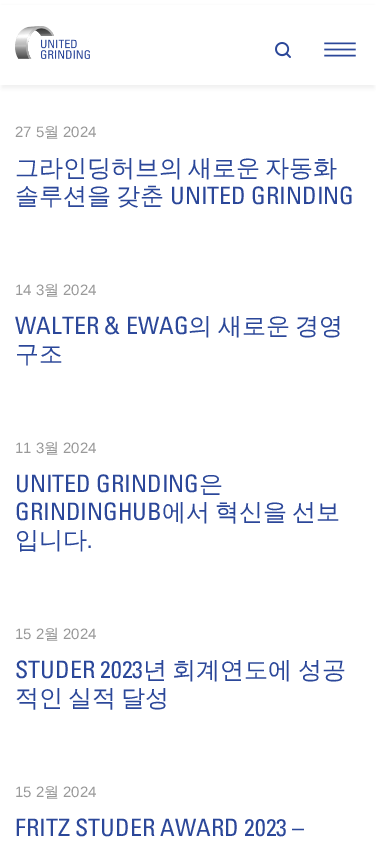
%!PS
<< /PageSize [376 857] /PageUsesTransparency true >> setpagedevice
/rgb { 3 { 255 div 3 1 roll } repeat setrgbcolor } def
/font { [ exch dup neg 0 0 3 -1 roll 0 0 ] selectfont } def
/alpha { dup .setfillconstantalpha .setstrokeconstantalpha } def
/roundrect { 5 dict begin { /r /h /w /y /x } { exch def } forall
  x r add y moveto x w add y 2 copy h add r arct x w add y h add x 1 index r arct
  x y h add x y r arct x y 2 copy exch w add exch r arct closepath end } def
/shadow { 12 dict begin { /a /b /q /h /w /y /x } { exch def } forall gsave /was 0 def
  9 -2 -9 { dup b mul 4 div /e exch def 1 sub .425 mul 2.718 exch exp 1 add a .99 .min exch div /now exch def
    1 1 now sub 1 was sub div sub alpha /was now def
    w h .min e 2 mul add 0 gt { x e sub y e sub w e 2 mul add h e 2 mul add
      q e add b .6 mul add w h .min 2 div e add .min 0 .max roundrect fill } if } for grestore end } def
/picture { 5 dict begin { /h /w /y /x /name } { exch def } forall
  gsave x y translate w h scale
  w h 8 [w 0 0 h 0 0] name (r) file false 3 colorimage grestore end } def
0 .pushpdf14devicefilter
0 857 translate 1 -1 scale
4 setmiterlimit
255 255 255 rgb
0 0 376 857 rectfill
233 233 233 rgb
2 7 372 81 0 2 0.7 shadow
255 255 255 rgb
0 5 376 80 rectfill
(img/1.rgb) 15 26 75 33 picture
(img/2.rgb) 275 42 16 16 picture
(img/3.rgb) 324 42 32 15 picture
/LiberationSans-Regular 15 font
153 153 153 rgb
15 137 moveto (27 5) show
/WenQuanYiZenHei-Medium 15 font
44 137 moveto (월) show
/LiberationSans-Regular 15 font
63 137 moveto (2024) show
/WenQuanYiZenHei-Medium 24 font
43 71 153 rgb
15 176 moveto -2 0 32 (그라인딩허브의 새로운 자동화) widthshow
15 204 moveto (솔루션을) show
116 204 moveto (갖춘) show
/univers-Regular 24 font
170 204 moveto (UNITED GRINDING) show
/LiberationSans-Regular 15 font
153 153 153 rgb
15 295 moveto (14 3) show
/WenQuanYiZenHei-Medium 15 font
44 295 moveto (월) show
/LiberationSans-Regular 15 font
63 295 moveto (2024) show
/univers-Regular 24 font
43 71 153 rgb
15 334 moveto (WALTER & EWAG) show
/WenQuanYiZenHei-Medium 24 font
[
  [(의) 188 334]
  [(새로운) 218 334]
  [(경영) 295 334]
  [(구조) 15 362]
] { aload pop moveto show } forall
/LiberationSans-Regular 15 font
153 153 153 rgb
15 453 moveto (11 3) show
/WenQuanYiZenHei-Medium 15 font
44 453 moveto (월) show
/LiberationSans-Regular 15 font
63 453 moveto (2024) show
/univers-Regular 24 font
43 71 153 rgb
15 492 moveto (UNITED GRINDING) show
/WenQuanYiZenHei-Medium 24 font
199 492 moveto (은) show
/univers-Regular 24 font
15 520 moveto (GRINDINGHUB) show
/WenQuanYiZenHei-Medium 24 font
162 520 moveto -2 0 32 (에서 혁신을 선보) widthshow
15 548 moveto (입니다) show
/univers-Regular 24 font
87 548 moveto (.) show
/LiberationSans-Regular 15 font
153 153 153 rgb
15 639 moveto (15 2) show
/WenQuanYiZenHei-Medium 15 font
44 639 moveto (월) show
/LiberationSans-Regular 15 font
63 639 moveto (2024) show
/univers-Regular 24 font
43 71 153 rgb
15 678 moveto (STUDER 2023) show
/WenQuanYiZenHei-Medium 24 font
[
  [(년) 143 678]
  [(회계연도에) 172 678]
  [(성공) 298 678]
] { aload pop moveto show } forall
15 706 moveto -2 0 32 (적인 실적 달성) widthshow
/LiberationSans-Regular 15 font
153 153 153 rgb
15 797 moveto (15 2) show
/WenQuanYiZenHei-Medium 15 font
44 797 moveto (월) show
/LiberationSans-Regular 15 font
63 797 moveto (2024) show
/univers-Regular 24 font
43 71 153 rgb
15 836 moveto (FRITZ STUDER AWARD 2023 –) show
.poppdf14devicefilter showpage
